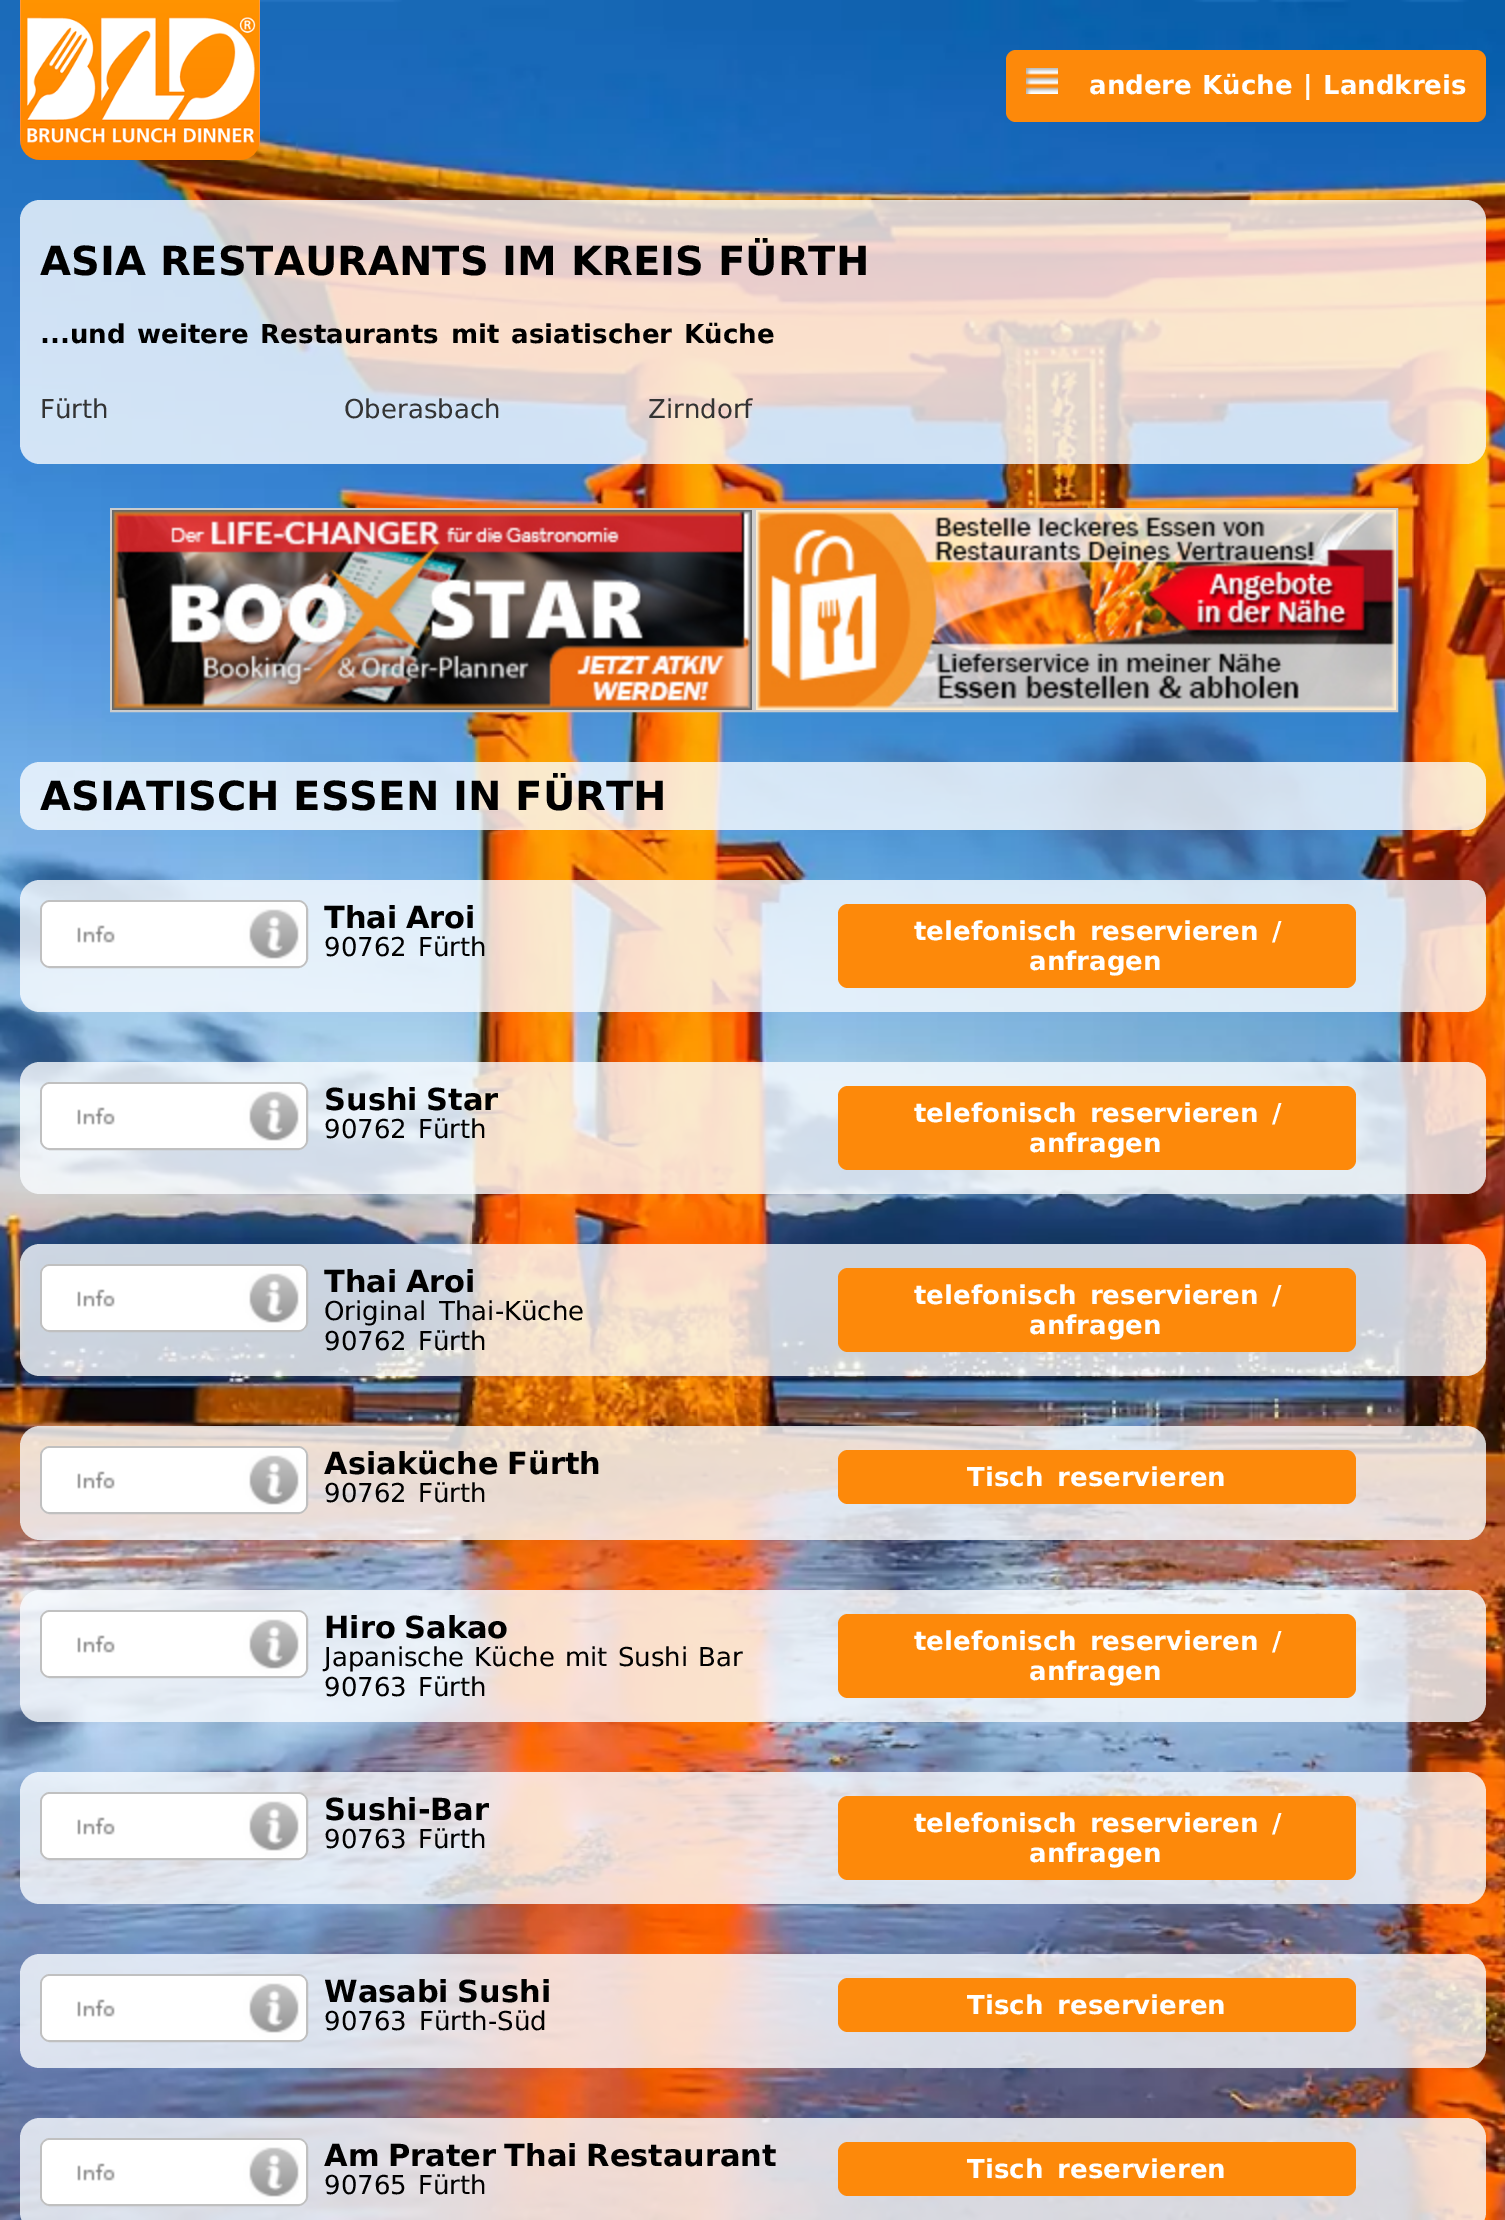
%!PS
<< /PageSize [1505 2220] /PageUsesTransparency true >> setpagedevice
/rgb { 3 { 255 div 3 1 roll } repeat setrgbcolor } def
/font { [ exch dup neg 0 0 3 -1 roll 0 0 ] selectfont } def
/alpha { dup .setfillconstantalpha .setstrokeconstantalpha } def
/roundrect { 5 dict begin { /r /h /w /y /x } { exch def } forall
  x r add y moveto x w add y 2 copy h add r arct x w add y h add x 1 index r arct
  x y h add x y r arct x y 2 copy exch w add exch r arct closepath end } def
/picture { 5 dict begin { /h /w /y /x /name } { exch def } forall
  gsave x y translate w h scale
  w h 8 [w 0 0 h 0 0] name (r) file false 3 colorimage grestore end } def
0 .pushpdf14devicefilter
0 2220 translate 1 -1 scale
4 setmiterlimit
255 255 255 rgb
0 0 1505 2220 rectfill
(img/1.rgb) 0 0 1505 2220 picture
(img/2.rgb) 20 0 240 160 picture
253 137 10 rgb
1006 50 480 72 10 roundrect fill
(img/3.rgb) 1026 68 32 26 picture
0.8 alpha
249 252 255 rgb
20 200 1466 264 20 roundrect fill
1 alpha
204 204 204 rgb
2 setlinewidth
111 509 642 202 rectstroke
(img/4.rgb) 112 510 640 200 picture
755 509 642 202 rectstroke
(img/5.rgb) 756 510 640 200 picture
0.8 alpha
249 252 255 rgb
20 762 1466 68 20 roundrect fill
20 880 1466 132 20 roundrect fill
1 alpha
238 238 238 rgb
41 901 266 66 9 roundrect gsave fill grestore
192 192 192 rgb
stroke
(img/6.rgb) 42 902 264 64 picture
253 137 10 rgb
838 904 518 84 10 roundrect fill
0.8 alpha
249 252 255 rgb
20 1062 1466 132 20 roundrect fill
1 alpha
238 238 238 rgb
41 1083 266 66 9 roundrect gsave fill grestore
192 192 192 rgb
stroke
(img/7.rgb) 42 1084 264 64 picture
253 137 10 rgb
838 1086 518 84 10 roundrect fill
0.8 alpha
249 252 255 rgb
20 1244 1466 132 20 roundrect fill
1 alpha
238 238 238 rgb
41 1265 266 66 9 roundrect gsave fill grestore
192 192 192 rgb
stroke
(img/8.rgb) 42 1266 264 64 picture
253 137 10 rgb
838 1268 518 84 10 roundrect fill
0.8 alpha
249 252 255 rgb
20 1426 1466 114 20 roundrect fill
1 alpha
238 238 238 rgb
41 1447 266 66 9 roundrect gsave fill grestore
192 192 192 rgb
stroke
(img/9.rgb) 42 1448 264 64 picture
253 137 10 rgb
838 1450 518 54 10 roundrect fill
0.8 alpha
249 252 255 rgb
20 1590 1466 132 20 roundrect fill
1 alpha
238 238 238 rgb
41 1611 266 66 9 roundrect gsave fill grestore
192 192 192 rgb
stroke
(img/10.rgb) 42 1612 264 64 picture
253 137 10 rgb
838 1614 518 84 10 roundrect fill
0.8 alpha
249 252 255 rgb
20 1772 1466 132 20 roundrect fill
1 alpha
238 238 238 rgb
41 1793 266 66 9 roundrect gsave fill grestore
192 192 192 rgb
stroke
(img/11.rgb) 42 1794 264 64 picture
253 137 10 rgb
838 1796 518 84 10 roundrect fill
0.8 alpha
249 252 255 rgb
20 1954 1466 114 20 roundrect fill
1 alpha
238 238 238 rgb
41 1975 266 66 9 roundrect gsave fill grestore
192 192 192 rgb
stroke
(img/12.rgb) 42 1976 264 64 picture
253 137 10 rgb
838 1978 518 54 10 roundrect fill
0.8 alpha
249 252 255 rgb
20 2118 1466 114 20 roundrect fill
1 alpha
238 238 238 rgb
41 2139 266 66 9 roundrect gsave fill grestore
192 192 192 rgb
stroke
(img/13.rgb) 42 2140 264 64 picture
253 137 10 rgb
838 2142 518 54 10 roundrect fill
/DejaVuSans-Bold 26 font
255 255 255 rgb
1089 94 moveto 1.5 0 32 (andere Küche | Landkreis) widthshow
/DejaVuSans-Bold 40 font
0 0 0 rgb
40 275 moveto (ASIA RESTAURANTS IM KREIS FÜRTH) show
/DejaVuSans-Bold 26 font
40 343 moveto 3 0 32 (...und weitere Restaurants mit asiatischer Küche) widthshow
/DejaVuSans-Regular 26 font
51 51 51 rgb
[
  [(Fürth) 40 418]
  [(Oberasbach) 344 418]
  [(Zirndorf) 648 418]
] { aload pop moveto show } forall
/DejaVuSans-Bold 40 font
0 0 0 rgb
40 810 moveto (ASIATISCH ESSEN IN FÜRTH) show
/DejaVuSans-Bold 30.4 font
324 928 moveto -2 0 32 (Thai Aroi) widthshow
/DejaVuSans-Regular 26 font
324 956 moveto 3 0 32 (90762 Fürth) widthshow
/DejaVuSans-Bold 26 font
255 255 255 rgb
914 940 moveto 4 0 32 (telefonisch reservieren /) widthshow
1029 970 moveto (anfragen) show
/DejaVuSans-Bold 30.4 font
0 0 0 rgb
324 1110 moveto -2 0 32 (Sushi Star) widthshow
/DejaVuSans-Regular 26 font
324 1138 moveto 3 0 32 (90762 Fürth) widthshow
/DejaVuSans-Bold 26 font
255 255 255 rgb
914 1122 moveto 4 0 32 (telefonisch reservieren /) widthshow
1029 1152 moveto (anfragen) show
/DejaVuSans-Bold 30.4 font
0 0 0 rgb
324 1292 moveto -2 0 32 (Thai Aroi) widthshow
/DejaVuSans-Regular 26 font
324 1320 moveto 5 0 32 (Original Thai-Küche) widthshow
324 1350 moveto 3 0 32 (90762 Fürth) widthshow
/DejaVuSans-Bold 26 font
255 255 255 rgb
914 1304 moveto 4 0 32 (telefonisch reservieren /) widthshow
1029 1334 moveto (anfragen) show
/DejaVuSans-Bold 30.4 font
0 0 0 rgb
324 1474 moveto -2 0 32 (Asiaküche Fürth) widthshow
/DejaVuSans-Regular 26 font
324 1502 moveto 3 0 32 (90762 Fürth) widthshow
/DejaVuSans-Bold 26 font
255 255 255 rgb
967 1486 moveto 5 0 32 (Tisch reservieren) widthshow
/DejaVuSans-Bold 30.4 font
0 0 0 rgb
324 1638 moveto -2 0 32 (Hiro Sakao) widthshow
/DejaVuSans-Regular 26 font
324 1666 moveto 2 0 32 (Japanische Küche mit Sushi Bar) widthshow
324 1696 moveto 3 0 32 (90763 Fürth) widthshow
/DejaVuSans-Bold 26 font
255 255 255 rgb
914 1650 moveto 4 0 32 (telefonisch reservieren /) widthshow
1029 1680 moveto (anfragen) show
/DejaVuSans-Bold 30.4 font
0 0 0 rgb
324 1820 moveto (Sushi-Bar) show
/DejaVuSans-Regular 26 font
324 1848 moveto 3 0 32 (90763 Fürth) widthshow
/DejaVuSans-Bold 26 font
255 255 255 rgb
914 1832 moveto 4 0 32 (telefonisch reservieren /) widthshow
1029 1862 moveto (anfragen) show
/DejaVuSans-Bold 30.4 font
0 0 0 rgb
324 2002 moveto -2 0 32 (Wasabi Sushi) widthshow
/DejaVuSans-Regular 26 font
324 2030 moveto 4 0 32 (90763 Fürth-Süd) widthshow
/DejaVuSans-Bold 26 font
255 255 255 rgb
967 2014 moveto 5 0 32 (Tisch reservieren) widthshow
/DejaVuSans-Bold 30.4 font
0 0 0 rgb
324 2166 moveto -2 0 32 (Am Prater Thai Restaurant) widthshow
/DejaVuSans-Regular 26 font
324 2194 moveto 3 0 32 (90765 Fürth) widthshow
/DejaVuSans-Bold 26 font
255 255 255 rgb
967 2178 moveto 5 0 32 (Tisch reservieren) widthshow
.poppdf14devicefilter showpage
